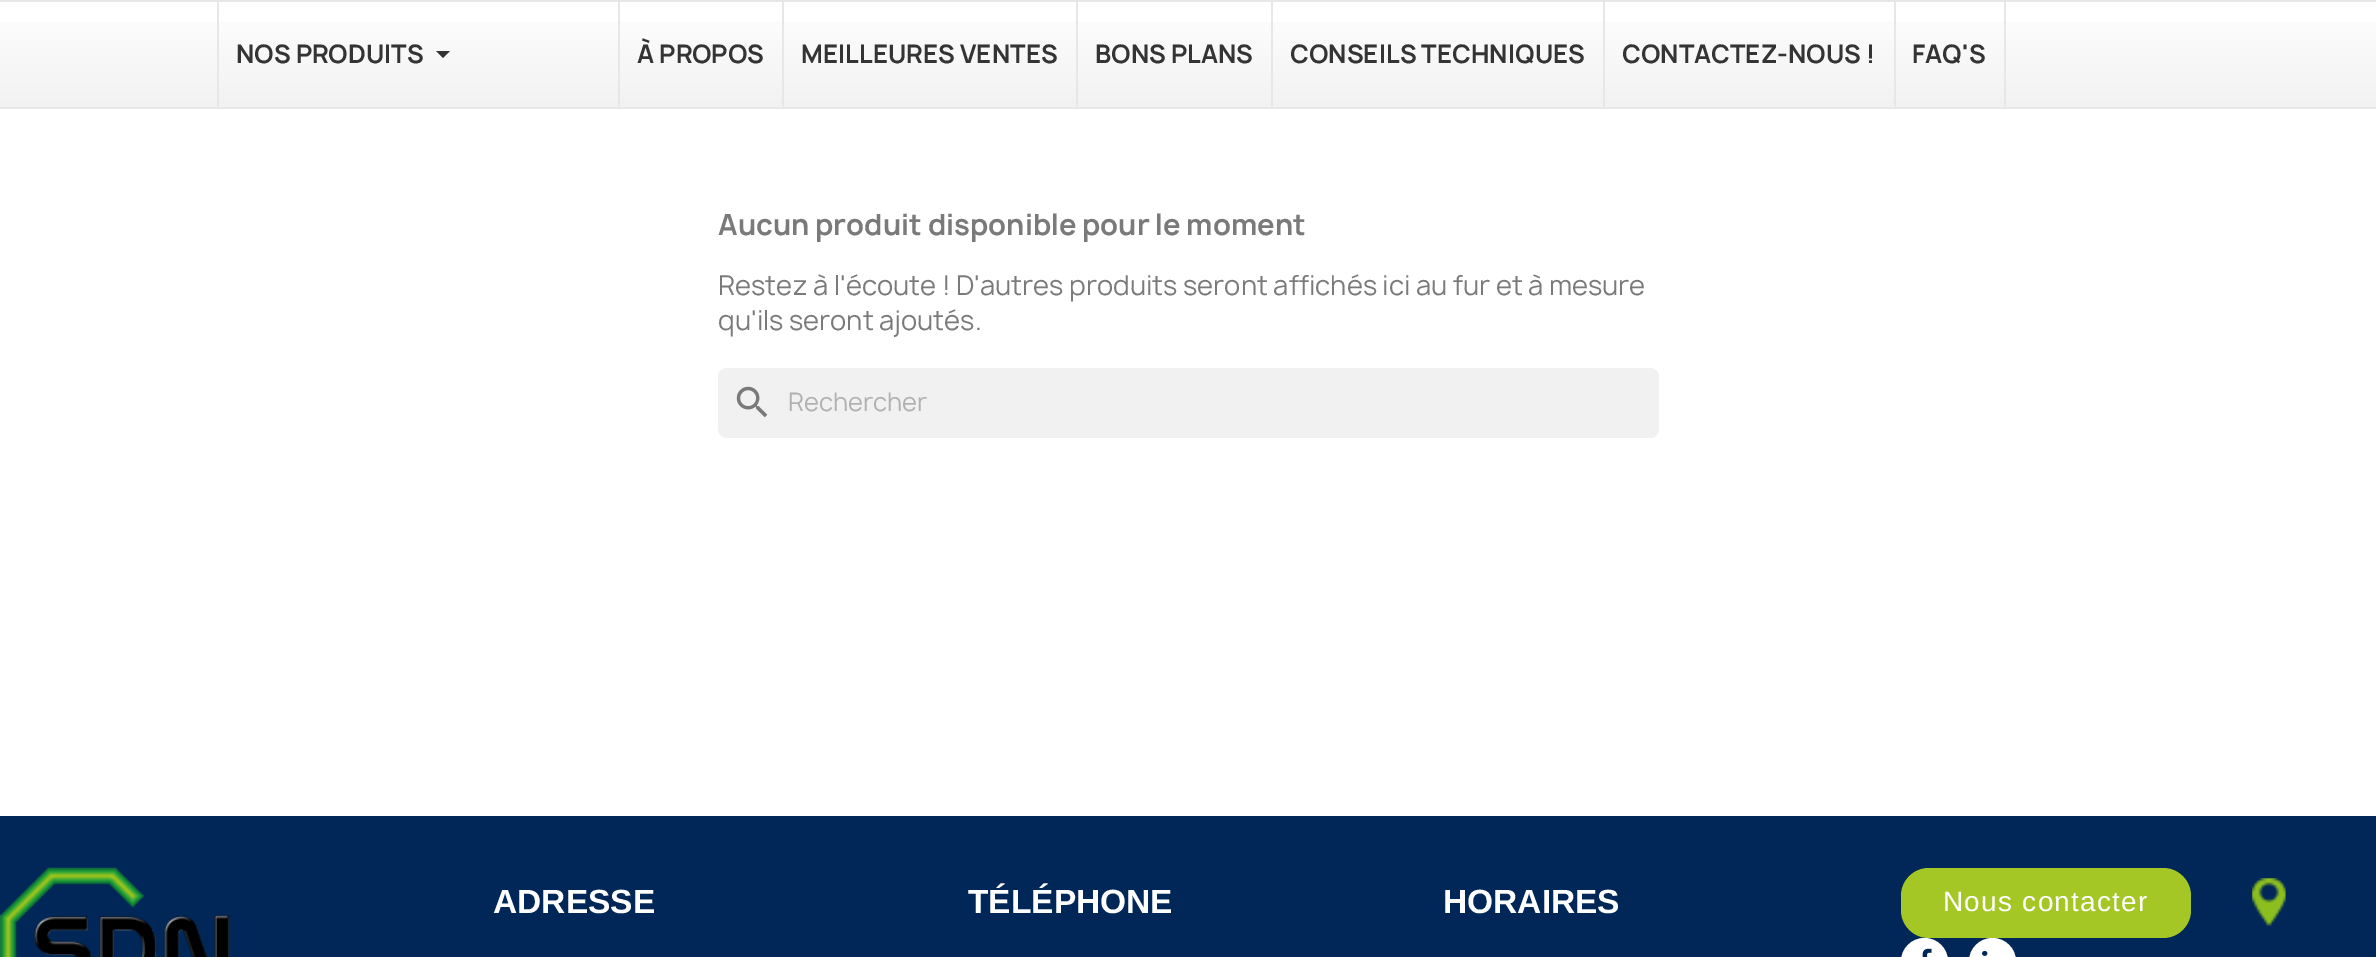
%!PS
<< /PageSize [2376 957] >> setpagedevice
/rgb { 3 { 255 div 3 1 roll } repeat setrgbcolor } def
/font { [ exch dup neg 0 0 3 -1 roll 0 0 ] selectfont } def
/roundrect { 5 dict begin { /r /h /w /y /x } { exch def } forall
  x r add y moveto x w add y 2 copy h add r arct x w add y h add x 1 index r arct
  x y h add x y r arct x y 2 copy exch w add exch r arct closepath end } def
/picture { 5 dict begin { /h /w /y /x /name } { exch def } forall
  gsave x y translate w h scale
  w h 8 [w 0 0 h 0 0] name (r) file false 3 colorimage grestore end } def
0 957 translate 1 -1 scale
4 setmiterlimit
255 255 255 rgb
0 0 2376 957 rectfill
gsave 0 22 moveto 2376 22 lineto 2376 107 lineto 0 107 lineto closepath clip newpath
<< /ShadingType 2 /ColorSpace /DeviceRGB /Coords [1188 1.7 1188 107] /Extend [true true] /Function << /FunctionType 2 /Domain [0 1] /C0 [1 1 1] /C1 [0.949 0.949 0.949] /N 1 >> >> shfill grestore
[
  [0 0 2376 2 231 231 231]
  [0 107 2376 2 231 231 231]
  [618 2 2 105 231 231 231]
  [217 2 2 105 231 231 231]
] { aload pop rgb rectfill } forall
52 52 52 rgb
436 51 moveto 450 51 lineto 443 58 lineto closepath fill
[
  [782 2 2 105 231 231 231]
  [1076 2 2 105 231 231 231]
  [1271 2 2 105 231 231 231]
  [1603 2 2 105 231 231 231]
  [1894 2 2 105 231 231 231]
  [2004 2 2 105 231 231 231]
] { aload pop rgb rectfill } forall
241 241 241 rgb
718 368 941 70 9 roundrect fill
(img/1.rgb) 736 386 32 32 picture
0 39 87 rgb
0 816 2376 141 rectfill
(img/2.rgb) 0 867 230 90 picture
165 199 37 rgb
1901 868 290 70 28 roundrect fill
(img/3.rgb) 2252 878 34 48 picture
255 255 255 rgb
1901 938 47 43 23.5 roundrect fill
(img/4.rgb) 1922 948 10 9 picture
1969 938 47 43 23.5 roundrect fill
(img/5.rgb) 1982 950 6 6 picture
/Manrope-Bold 24.5 font
52 52 52 rgb
[
  [(NOS PRODUITS) 236 63]
  [(À PROPOS) 637 63]
  [(MEILLEURES VENTES) 801 63]
  [(BONS PLANS) 1095 63]
  [(CONSEILS TECHNIQUES) 1290 63]
  [(CONTACTEZ-NOUS !) 1622 63]
  [(FAQ'S) 1912 63]
] { aload pop moveto show } forall
/Manrope-Bold 28 font
122 122 122 rgb
718 235 moveto (Aucun produit disponible pour le moment) show
/Manrope-Regular 26.25 font
718 295 moveto (Restez à l'écoute ! D'autres produits seront affichés ici au fur et à mesure) show
718 330 moveto (qu'ils seront ajoutés.) show
/Manrope-Regular 24.5 font
177 177 177 rgb
788 411 moveto (Rechercher) show
/LiberationSans-Bold 33.5 font
255 255 255 rgb
[
  [(ADRESSE) 493 913]
  [(TÉLÉPHONE) 968 913]
  [(HORAIRES) 1443 913]
] { aload pop moveto show } forall
/LiberationSans-Regular 28 font
1943 911 moveto 1.25 0 (Nous contacter) ashow
showpage
